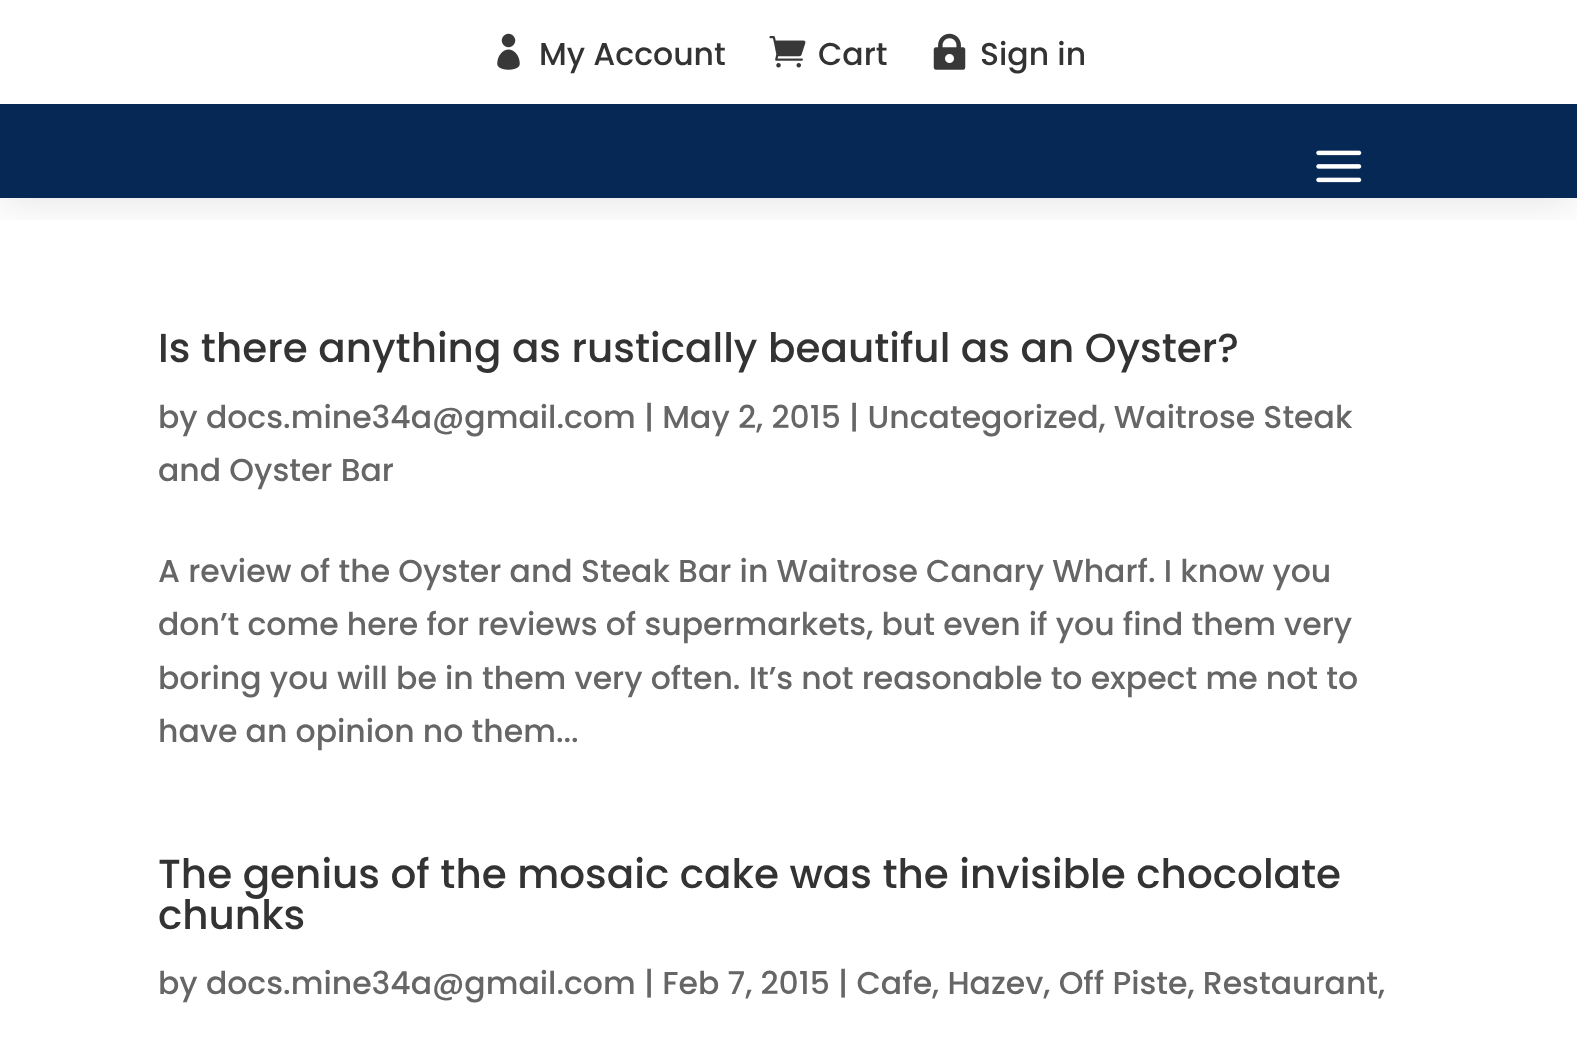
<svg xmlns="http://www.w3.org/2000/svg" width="1577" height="1042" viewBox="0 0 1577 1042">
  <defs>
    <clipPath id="clip1"><rect x="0" y="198" width="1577" height="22"/></clipPath>
    <filter id="blur1" x="-50%" y="-200%" width="200%" height="500%"><feGaussianBlur stdDeviation="20"/></filter>
  </defs>
  <rect width="100%" height="100%" fill="#ffffff"/>
  <g clip-path="url(#clip1)">
    <rect x="0" y="5" width="1577" height="198" fill="#000000" fill-opacity="0.1" filter="url(#blur1)"/>
  </g>
  <image x="497" y="33" width="23" height="37" href="img1.png"/>
  <text x="539" y="65" font-family="Poppins" font-size="31.5" font-weight="500" fill="#333333">My Account</text>
  <image x="769" y="36" width="37" height="32" href="img2.png"/>
  <text x="818" y="65" font-family="Poppins" font-size="31.5" font-weight="500" fill="#333333">Cart</text>
  <image x="933" y="33" width="33" height="37" href="img3.png"/>
  <text x="980" y="65" font-family="Poppins" font-size="31.5" font-weight="500" fill="#333333">Sign in</text>
  <rect x="0" y="104" width="1577" height="94" fill="#052854"/>
  <image x="1316" y="150" width="46" height="33" href="img4.png"/>
  <text x="158" y="362" font-family="Poppins" font-size="40.5" font-weight="500" fill="#333333">Is there anything as rustically beautiful as an Oyster?</text>
  <text x="158" y="428" font-family="Poppins" font-size="31.5" font-weight="500" fill="#666666">by docs.mine34a@gmail.com | May 2, 2015 | Uncategorized, Waitrose Steak</text>
  <text x="158" y="481" font-family="Poppins" font-size="31.5" font-weight="500" fill="#666666">and Oyster Bar</text>
  <text x="158" y="582" font-family="Poppins" font-size="31.5" font-weight="500" fill="#666666">A review of the Oyster and Steak Bar in Waitrose Canary Wharf. I know you</text>
  <text x="158" y="635" font-family="Poppins" font-size="31.5" font-weight="500" fill="#666666">don’t come here for reviews of supermarkets, but even if you find them very</text>
  <text x="158" y="689" font-family="Poppins" font-size="31.5" font-weight="500" fill="#666666">boring you will be in them very often. It’s not reasonable to expect me not to</text>
  <text x="158" y="742" font-family="Poppins" font-size="31.5" font-weight="500" fill="#666666">have an opinion no them...</text>
  <text x="158" y="888" font-family="Poppins" font-size="40.5" font-weight="500" fill="#333333">The genius of the mosaic cake was the invisible chocolate</text>
  <text x="158" y="929" font-family="Poppins" font-size="40.5" font-weight="500" fill="#333333">chunks</text>
  <text x="158" y="994" font-family="Poppins" font-size="31.5" font-weight="500" fill="#666666">by docs.mine34a@gmail.com | Feb 7, 2015 | Cafe, Hazev, Off Piste, Restaurant,</text>
</svg>
